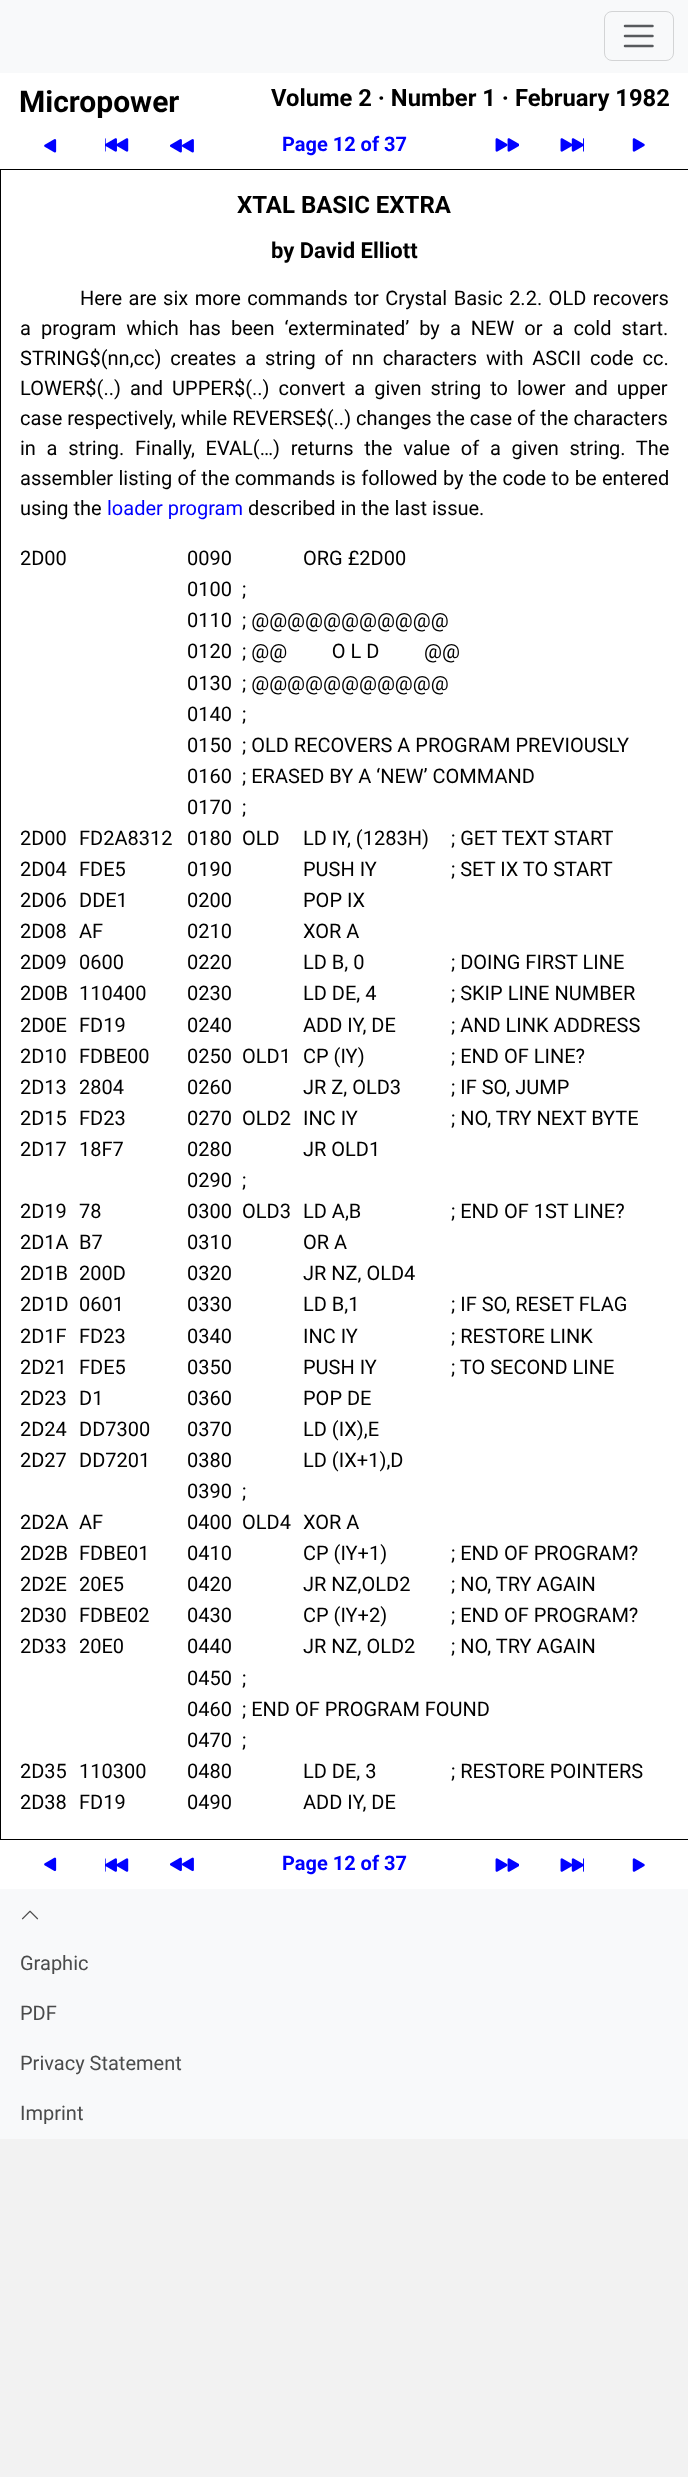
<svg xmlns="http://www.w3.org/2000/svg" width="688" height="2477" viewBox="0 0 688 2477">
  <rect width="100%" height="100%" fill="#f2f2f2"/>
  <rect x="0" y="0" width="688" height="73" fill="#f8f9fa"/>
  <rect x="604.5" y="11.5" width="69" height="49" rx="7.5" fill="none" stroke="#d3d4d5"/>
  <path d="M625 26H652.5M625 36H652.5M625 46H652.5" fill="none" stroke="#575a5d" stroke-width="2.5" stroke-linecap="round"/>
  <rect x="0" y="73" width="688" height="1816" fill="#ffffff"/>
  <text x="19" y="112" font-family="Roboto" font-size="30" font-weight="bold" fill="#000000">Micropower</text>
  <text x="271" y="106" font-family="Roboto" font-size="23.75" font-weight="bold" fill="#000000">Volume 2 · Number 1 · February 1982</text>
  <image x="44" y="139" width="13" height="14" href="img1.png"/>
  <image x="105" y="138" width="24" height="14" href="img2.png"/>
  <image x="170" y="139" width="24" height="14" href="img3.png"/>
  <text x="282" y="151" font-family="Roboto" font-size="20" font-weight="bold" fill="#0000ff">Page 12 of 37</text>
  <image x="495" y="138" width="24" height="14" href="img4.png"/>
  <image x="560" y="138" width="24" height="14" href="img5.png"/>
  <image x="632" y="138" width="13" height="14" href="img6.png"/>
  <rect x="0.5" y="169.5" width="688" height="1670" fill="none" stroke="#000000"/>
  <text x="237" y="213" font-family="Roboto" font-size="24" font-weight="bold" fill="#000000">XTAL BASIC EXTRA</text>
  <text x="271" y="258" font-family="Roboto" font-size="22" font-weight="bold" fill="#000000">by David Elliott</text>
  <text x="80" y="305" word-spacing="1.5" font-family="Roboto" font-size="20" fill="#000000">Here are six more commands tor Crystal Basic 2.2. OLD recovers</text>
  <text x="20" y="335" word-spacing="5.1" font-family="Roboto" font-size="20" fill="#000000">a program which has been ‘exterminated’ by a NEW or a cold start.</text>
  <text x="20" y="365" word-spacing="3.9" font-family="Roboto" font-size="20" fill="#000000">STRING$(nn,cc) creates a string of nn characters with ASCII code cc.</text>
  <text x="20" y="395" word-spacing="4" font-family="Roboto" font-size="20" fill="#000000">LOWER$(..) and UPPER$(..) convert a given string to lower and upper</text>
  <text x="20" y="425" font-family="Roboto" font-size="20" fill="#000000">case respectively, while REVERSE$(..) changes the case of the characters</text>
  <text x="20" y="455" word-spacing="5.75" font-family="Roboto" font-size="20" fill="#000000">in a string. Finally, EVAL(…) returns the value of a given string. The</text>
  <text x="20" y="485" word-spacing="0.4" font-family="Roboto" font-size="20" fill="#000000">assembler listing of the commands is followed by the code to be entered</text>
  <text x="20" y="515" font-family="Roboto" font-size="20" fill="#000000">using the</text>
  <text x="107" y="515" font-family="Roboto" font-size="20" fill="#0000ff">loader program</text>
  <text x="248" y="515" font-family="Roboto" font-size="20" fill="#000000">described in the last issue.</text>
  <text x="20" y="565" font-family="Roboto" font-size="20" fill="#000000">2D00</text>
  <text x="187" y="565" font-family="Roboto" font-size="20" fill="#000000">0090</text>
  <text x="303" y="565" font-family="Roboto" font-size="20" fill="#000000">ORG £2D00</text>
  <text x="187" y="596" font-family="Roboto" font-size="20" fill="#000000">0100</text>
  <text x="242" y="596" font-family="Roboto" font-size="20" fill="#000000">;</text>
  <text x="187" y="627" font-family="Roboto" font-size="20" fill="#000000">0110</text>
  <text x="242" y="627" font-family="Roboto" font-size="20" fill="#000000">; @@@@@@@@@@@</text>
  <text x="187" y="658" font-family="Roboto" font-size="20" fill="#000000">0120</text>
  <text x="242" y="658" font-family="Roboto" font-size="20" fill="#000000" xml:space="preserve">; @@         O L D         @@</text>
  <text x="187" y="690" font-family="Roboto" font-size="20" fill="#000000">0130</text>
  <text x="242" y="690" font-family="Roboto" font-size="20" fill="#000000">; @@@@@@@@@@@</text>
  <text x="187" y="721" font-family="Roboto" font-size="20" fill="#000000">0140</text>
  <text x="242" y="721" font-family="Roboto" font-size="20" fill="#000000">;</text>
  <text x="187" y="752" font-family="Roboto" font-size="20" fill="#000000">0150</text>
  <text x="242" y="752" font-family="Roboto" font-size="20" fill="#000000">; OLD RECOVERS A PROGRAM PREVIOUSLY</text>
  <text x="187" y="783" font-family="Roboto" font-size="20" fill="#000000">0160</text>
  <text x="242" y="783" font-family="Roboto" font-size="20" fill="#000000">; ERASED BY A ‘NEW’ COMMAND</text>
  <text x="187" y="814" font-family="Roboto" font-size="20" fill="#000000">0170</text>
  <text x="242" y="814" font-family="Roboto" font-size="20" fill="#000000">;</text>
  <text x="20" y="845" font-family="Roboto" font-size="20" fill="#000000">2D00</text>
  <text x="79" y="845" font-family="Roboto" font-size="20" fill="#000000">FD2A8312</text>
  <text x="187" y="845" font-family="Roboto" font-size="20" fill="#000000">0180</text>
  <text x="242" y="845" font-family="Roboto" font-size="20" fill="#000000">OLD</text>
  <text x="303" y="845" font-family="Roboto" font-size="20" fill="#000000">LD IY, (1283H)</text>
  <text x="451" y="845" font-family="Roboto" font-size="20" fill="#000000">; GET TEXT START</text>
  <text x="20" y="876" font-family="Roboto" font-size="20" fill="#000000">2D04</text>
  <text x="79" y="876" font-family="Roboto" font-size="20" fill="#000000">FDE5</text>
  <text x="187" y="876" font-family="Roboto" font-size="20" fill="#000000">0190</text>
  <text x="303" y="876" font-family="Roboto" font-size="20" fill="#000000">PUSH IY</text>
  <text x="451" y="876" font-family="Roboto" font-size="20" fill="#000000">; SET IX TO START</text>
  <text x="20" y="907" font-family="Roboto" font-size="20" fill="#000000">2D06</text>
  <text x="79" y="907" font-family="Roboto" font-size="20" fill="#000000">DDE1</text>
  <text x="187" y="907" font-family="Roboto" font-size="20" fill="#000000">0200</text>
  <text x="303" y="907" font-family="Roboto" font-size="20" fill="#000000">POP IX</text>
  <text x="20" y="938" font-family="Roboto" font-size="20" fill="#000000">2D08</text>
  <text x="79" y="938" font-family="Roboto" font-size="20" fill="#000000">AF</text>
  <text x="187" y="938" font-family="Roboto" font-size="20" fill="#000000">0210</text>
  <text x="303" y="938" font-family="Roboto" font-size="20" fill="#000000">XOR A</text>
  <text x="20" y="969" font-family="Roboto" font-size="20" fill="#000000">2D09</text>
  <text x="79" y="969" font-family="Roboto" font-size="20" fill="#000000">0600</text>
  <text x="187" y="969" font-family="Roboto" font-size="20" fill="#000000">0220</text>
  <text x="303" y="969" font-family="Roboto" font-size="20" fill="#000000">LD B, 0</text>
  <text x="451" y="969" font-family="Roboto" font-size="20" fill="#000000">; DOING FIRST LINE</text>
  <text x="20" y="1000" font-family="Roboto" font-size="20" fill="#000000">2D0B</text>
  <text x="79" y="1000" font-family="Roboto" font-size="20" fill="#000000">110400</text>
  <text x="187" y="1000" font-family="Roboto" font-size="20" fill="#000000">0230</text>
  <text x="303" y="1000" font-family="Roboto" font-size="20" fill="#000000">LD DE, 4</text>
  <text x="451" y="1000" font-family="Roboto" font-size="20" fill="#000000">; SKIP LINE NUMBER</text>
  <text x="20" y="1032" font-family="Roboto" font-size="20" fill="#000000">2D0E</text>
  <text x="79" y="1032" font-family="Roboto" font-size="20" fill="#000000">FD19</text>
  <text x="187" y="1032" font-family="Roboto" font-size="20" fill="#000000">0240</text>
  <text x="303" y="1032" font-family="Roboto" font-size="20" fill="#000000">ADD IY, DE</text>
  <text x="451" y="1032" font-family="Roboto" font-size="20" fill="#000000">; AND LINK ADDRESS</text>
  <text x="20" y="1063" font-family="Roboto" font-size="20" fill="#000000">2D10</text>
  <text x="79" y="1063" font-family="Roboto" font-size="20" fill="#000000">FDBE00</text>
  <text x="187" y="1063" font-family="Roboto" font-size="20" fill="#000000">0250</text>
  <text x="242" y="1063" font-family="Roboto" font-size="20" fill="#000000">OLD1</text>
  <text x="303" y="1063" font-family="Roboto" font-size="20" fill="#000000">CP (IY)</text>
  <text x="451" y="1063" font-family="Roboto" font-size="20" fill="#000000">; END OF LINE?</text>
  <text x="20" y="1094" font-family="Roboto" font-size="20" fill="#000000">2D13</text>
  <text x="79" y="1094" font-family="Roboto" font-size="20" fill="#000000">2804</text>
  <text x="187" y="1094" font-family="Roboto" font-size="20" fill="#000000">0260</text>
  <text x="303" y="1094" font-family="Roboto" font-size="20" fill="#000000">JR Z, OLD3</text>
  <text x="451" y="1094" font-family="Roboto" font-size="20" fill="#000000">; IF SO, JUMP</text>
  <text x="20" y="1125" font-family="Roboto" font-size="20" fill="#000000">2D15</text>
  <text x="79" y="1125" font-family="Roboto" font-size="20" fill="#000000">FD23</text>
  <text x="187" y="1125" font-family="Roboto" font-size="20" fill="#000000">0270</text>
  <text x="242" y="1125" font-family="Roboto" font-size="20" fill="#000000">OLD2</text>
  <text x="303" y="1125" font-family="Roboto" font-size="20" fill="#000000">INC IY</text>
  <text x="451" y="1125" font-family="Roboto" font-size="20" fill="#000000">; NO, TRY NEXT BYTE</text>
  <text x="20" y="1156" font-family="Roboto" font-size="20" fill="#000000">2D17</text>
  <text x="79" y="1156" font-family="Roboto" font-size="20" fill="#000000">18F7</text>
  <text x="187" y="1156" font-family="Roboto" font-size="20" fill="#000000">0280</text>
  <text x="303" y="1156" font-family="Roboto" font-size="20" fill="#000000">JR OLD1</text>
  <text x="187" y="1187" font-family="Roboto" font-size="20" fill="#000000">0290</text>
  <text x="242" y="1187" font-family="Roboto" font-size="20" fill="#000000">;</text>
  <text x="20" y="1218" font-family="Roboto" font-size="20" fill="#000000">2D19</text>
  <text x="79" y="1218" font-family="Roboto" font-size="20" fill="#000000">78</text>
  <text x="187" y="1218" font-family="Roboto" font-size="20" fill="#000000">0300</text>
  <text x="242" y="1218" font-family="Roboto" font-size="20" fill="#000000">OLD3</text>
  <text x="303" y="1218" font-family="Roboto" font-size="20" fill="#000000">LD A,B</text>
  <text x="451" y="1218" font-family="Roboto" font-size="20" fill="#000000">; END OF 1ST LINE?</text>
  <text x="20" y="1249" font-family="Roboto" font-size="20" fill="#000000">2D1A</text>
  <text x="79" y="1249" font-family="Roboto" font-size="20" fill="#000000">B7</text>
  <text x="187" y="1249" font-family="Roboto" font-size="20" fill="#000000">0310</text>
  <text x="303" y="1249" font-family="Roboto" font-size="20" fill="#000000">OR A</text>
  <text x="20" y="1280" font-family="Roboto" font-size="20" fill="#000000">2D1B</text>
  <text x="79" y="1280" font-family="Roboto" font-size="20" fill="#000000">200D</text>
  <text x="187" y="1280" font-family="Roboto" font-size="20" fill="#000000">0320</text>
  <text x="303" y="1280" font-family="Roboto" font-size="20" fill="#000000">JR NZ, OLD4</text>
  <text x="20" y="1311" font-family="Roboto" font-size="20" fill="#000000">2D1D</text>
  <text x="79" y="1311" font-family="Roboto" font-size="20" fill="#000000">0601</text>
  <text x="187" y="1311" font-family="Roboto" font-size="20" fill="#000000">0330</text>
  <text x="303" y="1311" font-family="Roboto" font-size="20" fill="#000000">LD B,1</text>
  <text x="451" y="1311" font-family="Roboto" font-size="20" fill="#000000">; IF SO, RESET FLAG</text>
  <text x="20" y="1343" font-family="Roboto" font-size="20" fill="#000000">2D1F</text>
  <text x="79" y="1343" font-family="Roboto" font-size="20" fill="#000000">FD23</text>
  <text x="187" y="1343" font-family="Roboto" font-size="20" fill="#000000">0340</text>
  <text x="303" y="1343" font-family="Roboto" font-size="20" fill="#000000">INC IY</text>
  <text x="451" y="1343" font-family="Roboto" font-size="20" fill="#000000">; RESTORE LINK</text>
  <text x="20" y="1374" font-family="Roboto" font-size="20" fill="#000000">2D21</text>
  <text x="79" y="1374" font-family="Roboto" font-size="20" fill="#000000">FDE5</text>
  <text x="187" y="1374" font-family="Roboto" font-size="20" fill="#000000">0350</text>
  <text x="303" y="1374" font-family="Roboto" font-size="20" fill="#000000">PUSH IY</text>
  <text x="451" y="1374" font-family="Roboto" font-size="20" fill="#000000">; TO SECOND LINE</text>
  <text x="20" y="1405" font-family="Roboto" font-size="20" fill="#000000">2D23</text>
  <text x="79" y="1405" font-family="Roboto" font-size="20" fill="#000000">D1</text>
  <text x="187" y="1405" font-family="Roboto" font-size="20" fill="#000000">0360</text>
  <text x="303" y="1405" font-family="Roboto" font-size="20" fill="#000000">POP DE</text>
  <text x="20" y="1436" font-family="Roboto" font-size="20" fill="#000000">2D24</text>
  <text x="79" y="1436" font-family="Roboto" font-size="20" fill="#000000">DD7300</text>
  <text x="187" y="1436" font-family="Roboto" font-size="20" fill="#000000">0370</text>
  <text x="303" y="1436" font-family="Roboto" font-size="20" fill="#000000">LD (IX),E</text>
  <text x="20" y="1467" font-family="Roboto" font-size="20" fill="#000000">2D27</text>
  <text x="79" y="1467" font-family="Roboto" font-size="20" fill="#000000">DD7201</text>
  <text x="187" y="1467" font-family="Roboto" font-size="20" fill="#000000">0380</text>
  <text x="303" y="1467" font-family="Roboto" font-size="20" fill="#000000">LD (IX+1),D</text>
  <text x="187" y="1498" font-family="Roboto" font-size="20" fill="#000000">0390</text>
  <text x="242" y="1498" font-family="Roboto" font-size="20" fill="#000000">;</text>
  <text x="20" y="1529" font-family="Roboto" font-size="20" fill="#000000">2D2A</text>
  <text x="79" y="1529" font-family="Roboto" font-size="20" fill="#000000">AF</text>
  <text x="187" y="1529" font-family="Roboto" font-size="20" fill="#000000">0400</text>
  <text x="242" y="1529" font-family="Roboto" font-size="20" fill="#000000">OLD4</text>
  <text x="303" y="1529" font-family="Roboto" font-size="20" fill="#000000">XOR A</text>
  <text x="20" y="1560" font-family="Roboto" font-size="20" fill="#000000">2D2B</text>
  <text x="79" y="1560" font-family="Roboto" font-size="20" fill="#000000">FDBE01</text>
  <text x="187" y="1560" font-family="Roboto" font-size="20" fill="#000000">0410</text>
  <text x="303" y="1560" font-family="Roboto" font-size="20" fill="#000000">CP (IY+1)</text>
  <text x="451" y="1560" font-family="Roboto" font-size="20" fill="#000000">; END OF PROGRAM?</text>
  <text x="20" y="1591" font-family="Roboto" font-size="20" fill="#000000">2D2E</text>
  <text x="79" y="1591" font-family="Roboto" font-size="20" fill="#000000">20E5</text>
  <text x="187" y="1591" font-family="Roboto" font-size="20" fill="#000000">0420</text>
  <text x="303" y="1591" font-family="Roboto" font-size="20" fill="#000000">JR NZ,OLD2</text>
  <text x="451" y="1591" font-family="Roboto" font-size="20" fill="#000000">; NO, TRY AGAIN</text>
  <text x="20" y="1622" font-family="Roboto" font-size="20" fill="#000000">2D30</text>
  <text x="79" y="1622" font-family="Roboto" font-size="20" fill="#000000">FDBE02</text>
  <text x="187" y="1622" font-family="Roboto" font-size="20" fill="#000000">0430</text>
  <text x="303" y="1622" font-family="Roboto" font-size="20" fill="#000000">CP (IY+2)</text>
  <text x="451" y="1622" font-family="Roboto" font-size="20" fill="#000000">; END OF PROGRAM?</text>
  <text x="20" y="1653" font-family="Roboto" font-size="20" fill="#000000">2D33</text>
  <text x="79" y="1653" font-family="Roboto" font-size="20" fill="#000000">20E0</text>
  <text x="187" y="1653" font-family="Roboto" font-size="20" fill="#000000">0440</text>
  <text x="303" y="1653" font-family="Roboto" font-size="20" fill="#000000">JR NZ, OLD2</text>
  <text x="451" y="1653" font-family="Roboto" font-size="20" fill="#000000">; NO, TRY AGAIN</text>
  <text x="187" y="1685" font-family="Roboto" font-size="20" fill="#000000">0450</text>
  <text x="242" y="1685" font-family="Roboto" font-size="20" fill="#000000">;</text>
  <text x="187" y="1716" font-family="Roboto" font-size="20" fill="#000000">0460</text>
  <text x="242" y="1716" font-family="Roboto" font-size="20" fill="#000000">; END OF PROGRAM FOUND</text>
  <text x="187" y="1747" font-family="Roboto" font-size="20" fill="#000000">0470</text>
  <text x="242" y="1747" font-family="Roboto" font-size="20" fill="#000000">;</text>
  <text x="20" y="1778" font-family="Roboto" font-size="20" fill="#000000">2D35</text>
  <text x="79" y="1778" font-family="Roboto" font-size="20" fill="#000000">110300</text>
  <text x="187" y="1778" font-family="Roboto" font-size="20" fill="#000000">0480</text>
  <text x="303" y="1778" font-family="Roboto" font-size="20" fill="#000000">LD DE, 3</text>
  <text x="451" y="1778" font-family="Roboto" font-size="20" fill="#000000">; RESTORE POINTERS</text>
  <text x="20" y="1809" font-family="Roboto" font-size="20" fill="#000000">2D38</text>
  <text x="79" y="1809" font-family="Roboto" font-size="20" fill="#000000">FD19</text>
  <text x="187" y="1809" font-family="Roboto" font-size="20" fill="#000000">0490</text>
  <text x="303" y="1809" font-family="Roboto" font-size="20" fill="#000000">ADD IY, DE</text>
  <image x="44" y="1857" width="13" height="15" href="img7.png"/>
  <image x="105" y="1858" width="24" height="14" href="img8.png"/>
  <image x="170" y="1857" width="24" height="15" href="img9.png"/>
  <text x="282" y="1870" font-family="Roboto" font-size="20" font-weight="bold" fill="#0000ff">Page 12 of 37</text>
  <image x="495" y="1858" width="24" height="14" href="img10.png"/>
  <image x="560" y="1858" width="24" height="14" href="img11.png"/>
  <image x="632" y="1858" width="13" height="14" href="img12.png"/>
  <rect x="0" y="1889" width="688" height="250" fill="#f8f9fa"/>
  <image x="21" y="1910" width="18" height="10" href="img13.png"/>
  <text x="20" y="1970" font-family="Roboto" font-size="20" fill="#4a4b4b">Graphic</text>
  <text x="20" y="2020" font-family="Roboto" font-size="20" fill="#4a4b4b">PDF</text>
  <text x="20" y="2070" font-family="Roboto" font-size="20" fill="#4a4b4b">Privacy Statement</text>
  <text x="20" y="2120" font-family="Roboto" font-size="20" fill="#4a4b4b">Imprint</text>
</svg>
